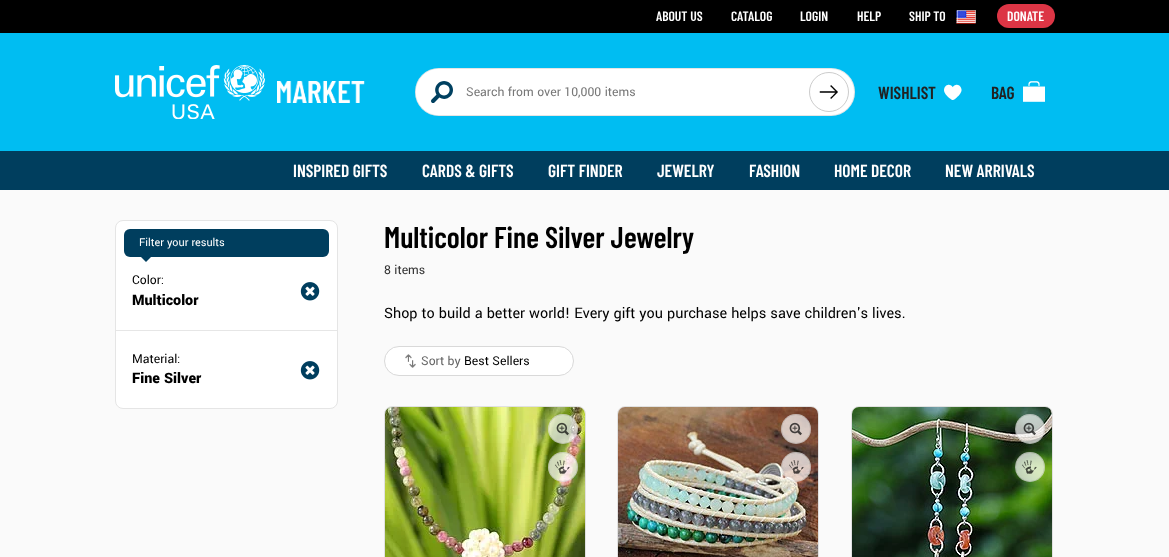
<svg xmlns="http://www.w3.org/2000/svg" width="1169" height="557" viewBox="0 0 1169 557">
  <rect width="100%" height="100%" fill="#fafafa"/>
  <rect x="0" y="33" width="1169" height="118" fill="#00bdf2"/>
  <rect x="0" y="0" width="1169" height="33" fill="#000000"/>
  <text x="656" y="21" font-family="Barlow Condensed" font-size="13.6" font-weight="600" fill="#ffffff">ABOUT US</text>
  <text x="731" y="21" font-family="Barlow Condensed" font-size="13.6" font-weight="600" fill="#ffffff">CATALOG</text>
  <text x="800" y="21" font-family="Barlow Condensed" font-size="13.6" font-weight="600" fill="#ffffff">LOGIN</text>
  <text x="857" y="21" font-family="Barlow Condensed" font-size="13.6" font-weight="600" fill="#ffffff">HELP</text>
  <text x="909" y="21" font-family="Barlow Condensed" font-size="13.6" font-weight="600" fill="#ffffff">SHIP TO</text>
  <image x="956" y="10" width="20" height="14" href="img1.png"/>
  <rect x="957.4" y="10.4" width="18.2" height="12.2" fill="none" stroke="#ffffff" stroke-opacity="0.6" stroke-width="0.8"/>
  <rect x="997" y="4" width="58" height="24" rx="12" fill="#dc3545"/>
  <text x="1007" y="21" font-family="Barlow Condensed" font-size="13.6" font-weight="600" fill="#ffffff">DONATE</text>
  <image x="115" y="65" width="150" height="54" href="img2.png"/>
  <image x="277" y="81" width="88" height="22" href="img3.png"/>
  <rect x="415" y="68" width="440" height="48" rx="24" fill="#ffffff"/>
  <rect x="415.5" y="68.5" width="439" height="47" rx="23.5" fill="none" stroke="#000000" stroke-opacity="0.1"/>
  <path d="M439 69H809V115H439C426.5 115 416 104.5 416 92C416 79.5 426.5 69 439 69Z" fill="#ffffff"/>
  <text x="431" y="103" font-family="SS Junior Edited" font-size="22" fill="#004060">🔎</text>
  <text x="466" y="96" font-family="Yantramanav" font-size="13.6" fill="#777777">Search from over 10,000 items</text>
  <circle cx="829" cy="92" r="19.5" fill="none" stroke="#cccccc"/>
  <image x="819" y="85" width="19" height="14" href="img4.png"/>
  <text x="878" y="99" font-family="Barlow Condensed" font-size="17.5" font-weight="600" fill="#212121">WISHLIST</text>
  <text x="944" y="100" font-family="SS Junior Edited" font-size="17.5" fill="#ffffff">♥</text>
  <text x="991" y="99" font-family="Barlow Condensed" font-size="17.5" font-weight="600" fill="#212121">BAG</text>
  <image x="1023" y="81" width="22" height="21" href="img5.png"/>
  <rect x="0" y="151" width="1169" height="39" fill="#003e5e"/>
  <text x="293" y="177" font-family="Barlow Condensed" font-size="17.5" font-weight="600" fill="#ffffff">INSPIRED GIFTS</text>
  <text x="422" y="177" font-family="Barlow Condensed" font-size="17.5" font-weight="600" fill="#ffffff">CARDS &amp; GIFTS</text>
  <text x="548" y="177" font-family="Barlow Condensed" font-size="17.5" font-weight="600" fill="#ffffff">GIFT FINDER</text>
  <text x="657" y="177" font-family="Barlow Condensed" font-size="17.5" font-weight="600" fill="#ffffff">JEWELRY</text>
  <text x="749" y="177" font-family="Barlow Condensed" font-size="17.5" font-weight="600" fill="#ffffff">FASHION</text>
  <text x="834" y="177" font-family="Barlow Condensed" font-size="17.5" font-weight="600" fill="#ffffff">HOME DECOR</text>
  <text x="945" y="177" font-family="Barlow Condensed" font-size="17.5" font-weight="600" fill="#ffffff">NEW ARRIVALS</text>
  <rect x="115.5" y="220.5" width="222" height="188" rx="7.5" fill="#ffffff" stroke="#e5e5e5"/>
  <rect x="124" y="229" width="205" height="28" rx="6" fill="#003e5e"/>
  <text x="139" y="246" font-family="Yantramanav" font-size="12" fill="#ffffff">Filter your results</text>
  <path d="M139 255H153L146 262Z" fill="#003e5e"/>
  <text x="132" y="284" font-family="Yantramanav" font-size="13.6" fill="#000000">Color:</text>
  <text x="132" y="305" font-family="Yantramanav" font-size="16" font-weight="900" fill="#000000">Multicolor</text>
  <image x="300" y="282" width="20" height="19" href="img6.png"/>
  <rect x="116" y="330" width="221" height="1" fill="#e6e6e6"/>
  <text x="132" y="363" font-family="Yantramanav" font-size="13.6" fill="#000000">Material:</text>
  <text x="132" y="383" font-family="Yantramanav" font-size="16" font-weight="900" fill="#000000">Fine Silver</text>
  <image x="300" y="361" width="20" height="19" href="img6.png"/>
  <text x="384" y="248" font-family="Barlow Condensed" font-size="30" font-weight="600" fill="#000000">Multicolor Fine Silver Jewelry</text>
  <text x="384" y="274" font-family="Yantramanav" font-size="13.6" fill="#323232">8 items</text>
  <text x="384" y="318" font-family="Yantramanav" font-size="16" fill="#000000">Shop to build a better world! Every gift you purchase helps save children's lives.</text>
  <rect x="384.5" y="346.5" width="189" height="29" rx="14.5" fill="#ffffff" stroke="#d9d9d9"/>
  <image x="405" y="354" width="11" height="14" href="img7.png"/>
  <text x="421" y="365" font-family="Yantramanav" font-size="13.6" fill="#666666">Sort by</text>
  <text x="464" y="365" font-family="Yantramanav" font-size="13.6" fill="#000000">Best Sellers</text>
  <rect x="384.5" y="406.5" width="201" height="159" rx="7.5" fill="none" stroke="#e1e1e1"/>
  <image x="385" y="407" width="200" height="150" href="img8.png"/>
  <circle cx="563" cy="429" r="15" fill="#ffffff" fill-opacity="0.7"/>
  <circle cx="563" cy="429" r="14.5" fill="none" stroke="#000000" stroke-opacity="0.1"/>
  <image x="556" y="422" width="13" height="14" href="img9.png"/>
  <circle cx="563" cy="467" r="15" fill="#ffffff" fill-opacity="0.7"/>
  <circle cx="563" cy="467" r="14.5" fill="none" stroke="#000000" stroke-opacity="0.1"/>
  <image x="555" y="460" width="15" height="14" href="img10.png"/>
  <rect x="617.5" y="406.5" width="201" height="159" rx="7.5" fill="none" stroke="#e1e1e1"/>
  <image x="618" y="407" width="200" height="150" href="img11.png"/>
  <circle cx="796" cy="429" r="15" fill="#ffffff" fill-opacity="0.7"/>
  <circle cx="796" cy="429" r="14.5" fill="none" stroke="#000000" stroke-opacity="0.1"/>
  <image x="789" y="422" width="13" height="14" href="img12.png"/>
  <circle cx="796" cy="467" r="15" fill="#ffffff" fill-opacity="0.7"/>
  <circle cx="796" cy="467" r="14.5" fill="none" stroke="#000000" stroke-opacity="0.1"/>
  <image x="789" y="460" width="15" height="14" href="img13.png"/>
  <rect x="851.5" y="406.5" width="201" height="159" rx="7.5" fill="none" stroke="#e1e1e1"/>
  <image x="852" y="407" width="200" height="150" href="img14.png"/>
  <circle cx="1030" cy="429" r="15" fill="#ffffff" fill-opacity="0.7"/>
  <circle cx="1030" cy="429" r="14.5" fill="none" stroke="#000000" stroke-opacity="0.1"/>
  <image x="1023" y="422" width="13" height="14" href="img15.png"/>
  <circle cx="1030" cy="467" r="15" fill="#ffffff" fill-opacity="0.7"/>
  <circle cx="1030" cy="467" r="14.5" fill="none" stroke="#000000" stroke-opacity="0.1"/>
  <image x="1022" y="460" width="15" height="14" href="img16.png"/>
</svg>
